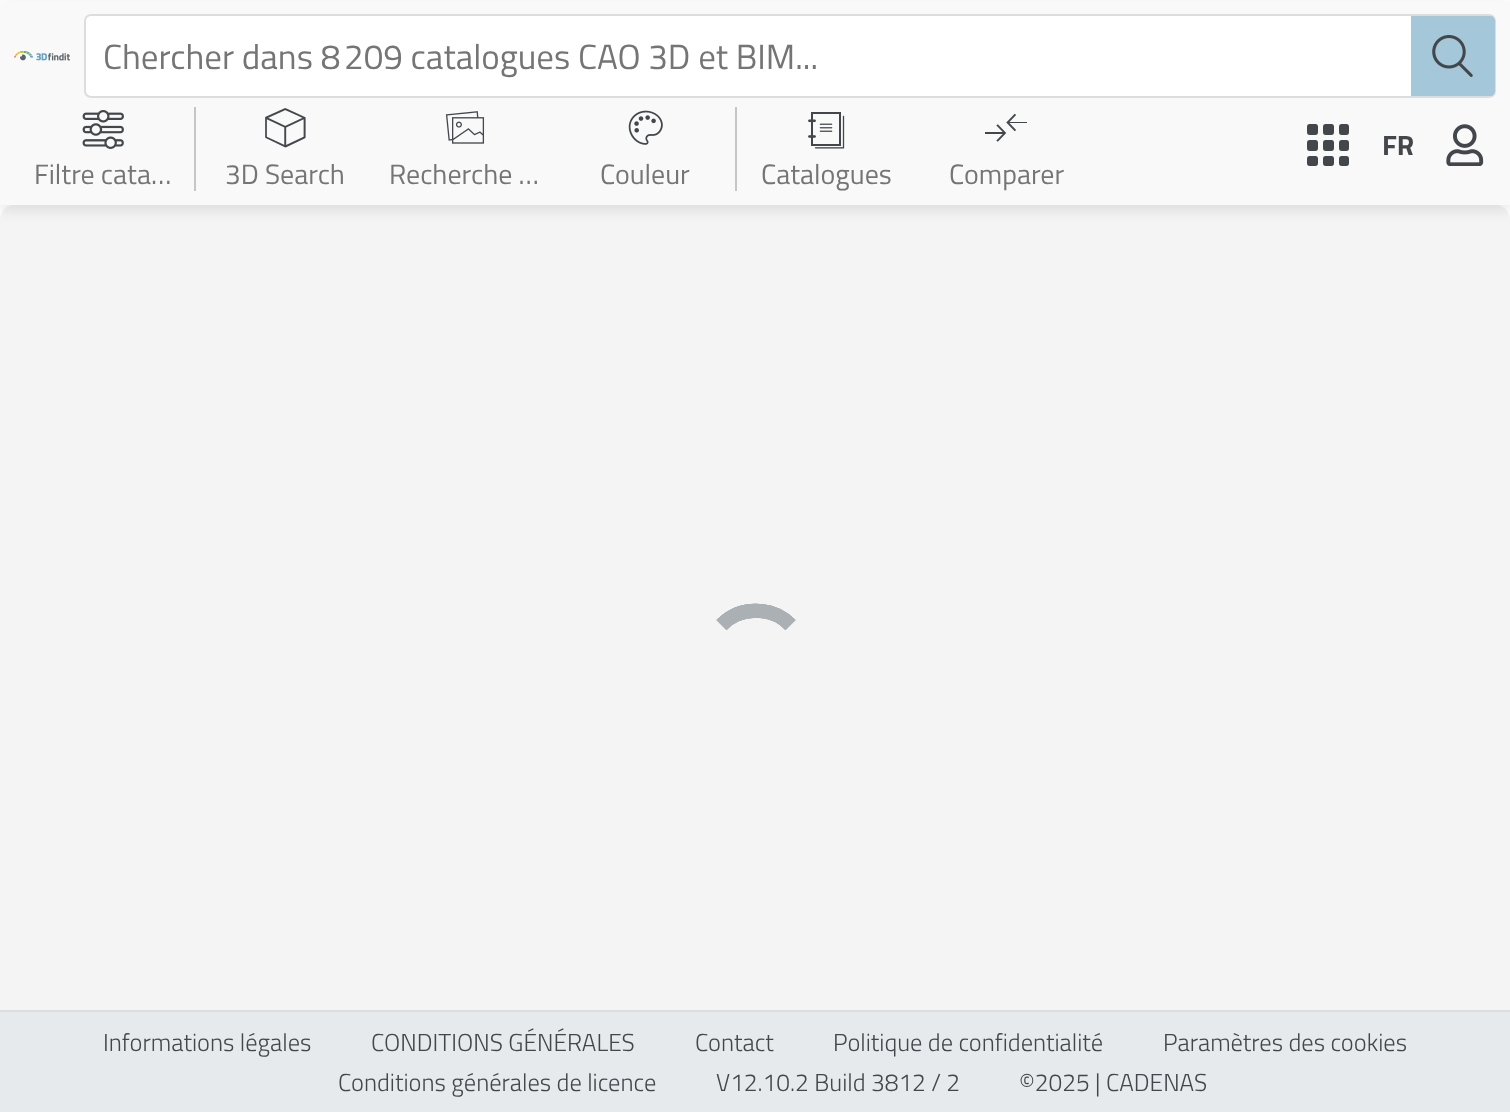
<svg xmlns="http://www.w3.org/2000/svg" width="1510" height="1112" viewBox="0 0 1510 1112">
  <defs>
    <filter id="blur1" x="-50%" y="-200%" width="200%" height="500%"><feGaussianBlur stdDeviation="7"/></filter>
  </defs>
  <rect width="100%" height="100%" fill="#ffffff"/>
  <path d="M14 205H1496C1503.5 205 1510 211.5 1510 219V1010H0V219C0 211.5 6.5 205 14 205Z" fill="#f4f4f4"/>
  <rect x="0" y="5" width="1510" height="205" fill="#000000" fill-opacity="0.1" filter="url(#blur1)"/>
  <rect x="0" y="2" width="1510" height="203" fill="#f9f9f9"/>
  <image x="14" y="51" width="56" height="10" href="img1.png"/>
  <rect x="85" y="15" width="1410" height="82" rx="6" fill="#ffffff" stroke="#dddddd" stroke-width="2"/>
  <text x="103" y="69" font-family="Titillium Web" font-size="35" fill="#757575">Chercher dans 8 209 catalogues CAO 3D et BIM...</text>
  <path d="M1411 16H1490C1493 16 1495 18 1495 21V91C1495 94 1493 96 1490 96H1411Z" fill="#a4c8d9"/>
  <image x="1432" y="35" width="41" height="42" href="img2.png"/>
  <image x="1307" y="124" width="42" height="42" href="img3.png"/>
  <text x="1382" y="155" font-family="Titillium Web" font-size="28" font-weight="bold" fill="#43474b">FR</text>
  <image x="1446" y="124" width="38" height="42" href="img4.png"/>
  <image x="82" y="110" width="42" height="39" href="img5.png"/>
  <text x="34" y="184" font-family="Titillium Web" font-size="28" fill="#757575">Filtre cata…</text>
  <rect x="194" y="107" width="2" height="84" fill="#c6c6c6"/>
  <image x="265" y="108" width="41" height="40" href="img6.png"/>
  <text x="225" y="184" font-family="Titillium Web" font-size="28" fill="#757575">3D Search</text>
  <image x="445" y="111" width="40" height="33" href="img7.png"/>
  <text x="389" y="184" font-family="Titillium Web" font-size="28" fill="#757575">Recherche …</text>
  <image x="628" y="110" width="35" height="35" href="img8.png"/>
  <text x="600" y="184" font-family="Titillium Web" font-size="28" fill="#757575">Couleur</text>
  <rect x="735" y="107" width="2" height="84" fill="#c6c6c6"/>
  <image x="808" y="112" width="37" height="37" href="img9.png"/>
  <text x="761" y="184" font-family="Titillium Web" font-size="28" fill="#757575">Catalogues</text>
  <image x="985" y="113" width="42" height="29" href="img10.png"/>
  <text x="949" y="184" font-family="Titillium Web" font-size="28" fill="#757575">Comparer</text>
  <path d="M721.5 625C740 606 772 606 790.5 625" fill="none" stroke="#aab0b3" stroke-width="14"/>
  <path d="M721.5 625C740 606 772 606 790.5 625" fill="none" stroke="#aab0b3" stroke-width="14"/>
  <path d="M721.5 625C740 606 772 606 790.5 625" fill="none" stroke="#aab0b3" stroke-width="14"/>
  <path d="M721.5 625C740 606 772 606 790.5 625" fill="none" stroke="#aab0b3" stroke-width="14"/>
  <rect x="0" y="1012" width="1510" height="100" fill="#e7eaec"/>
  <rect x="0" y="1010" width="1510" height="2" fill="#dddddd"/>
  <text x="103" y="1051" font-family="Titillium Web" font-size="24.5" font-weight="300" fill="#43474b">Informations légales</text>
  <text x="371" y="1051" font-family="Titillium Web" font-size="24.5" font-weight="300" fill="#43474b">CONDITIONS GÉNÉRALES</text>
  <text x="695" y="1051" font-family="Titillium Web" font-size="24.5" font-weight="300" fill="#43474b">Contact</text>
  <text x="833" y="1051" font-family="Titillium Web" font-size="24.5" font-weight="300" fill="#43474b">Politique de confidentialité</text>
  <text x="1163" y="1051" font-family="Titillium Web" font-size="24.5" font-weight="300" fill="#43474b">Paramètres des cookies</text>
  <text x="338" y="1091" font-family="Titillium Web" font-size="24.5" font-weight="300" fill="#43474b">Conditions générales de licence</text>
  <text x="716" y="1091" font-family="Titillium Web" font-size="24.5" font-weight="300" fill="#43474b">V12.10.2 Build 3812 / 2</text>
  <text x="1019" y="1091" font-family="Titillium Web" font-size="24.5" font-weight="300" fill="#43474b">©2025 | CADENAS</text>
</svg>
